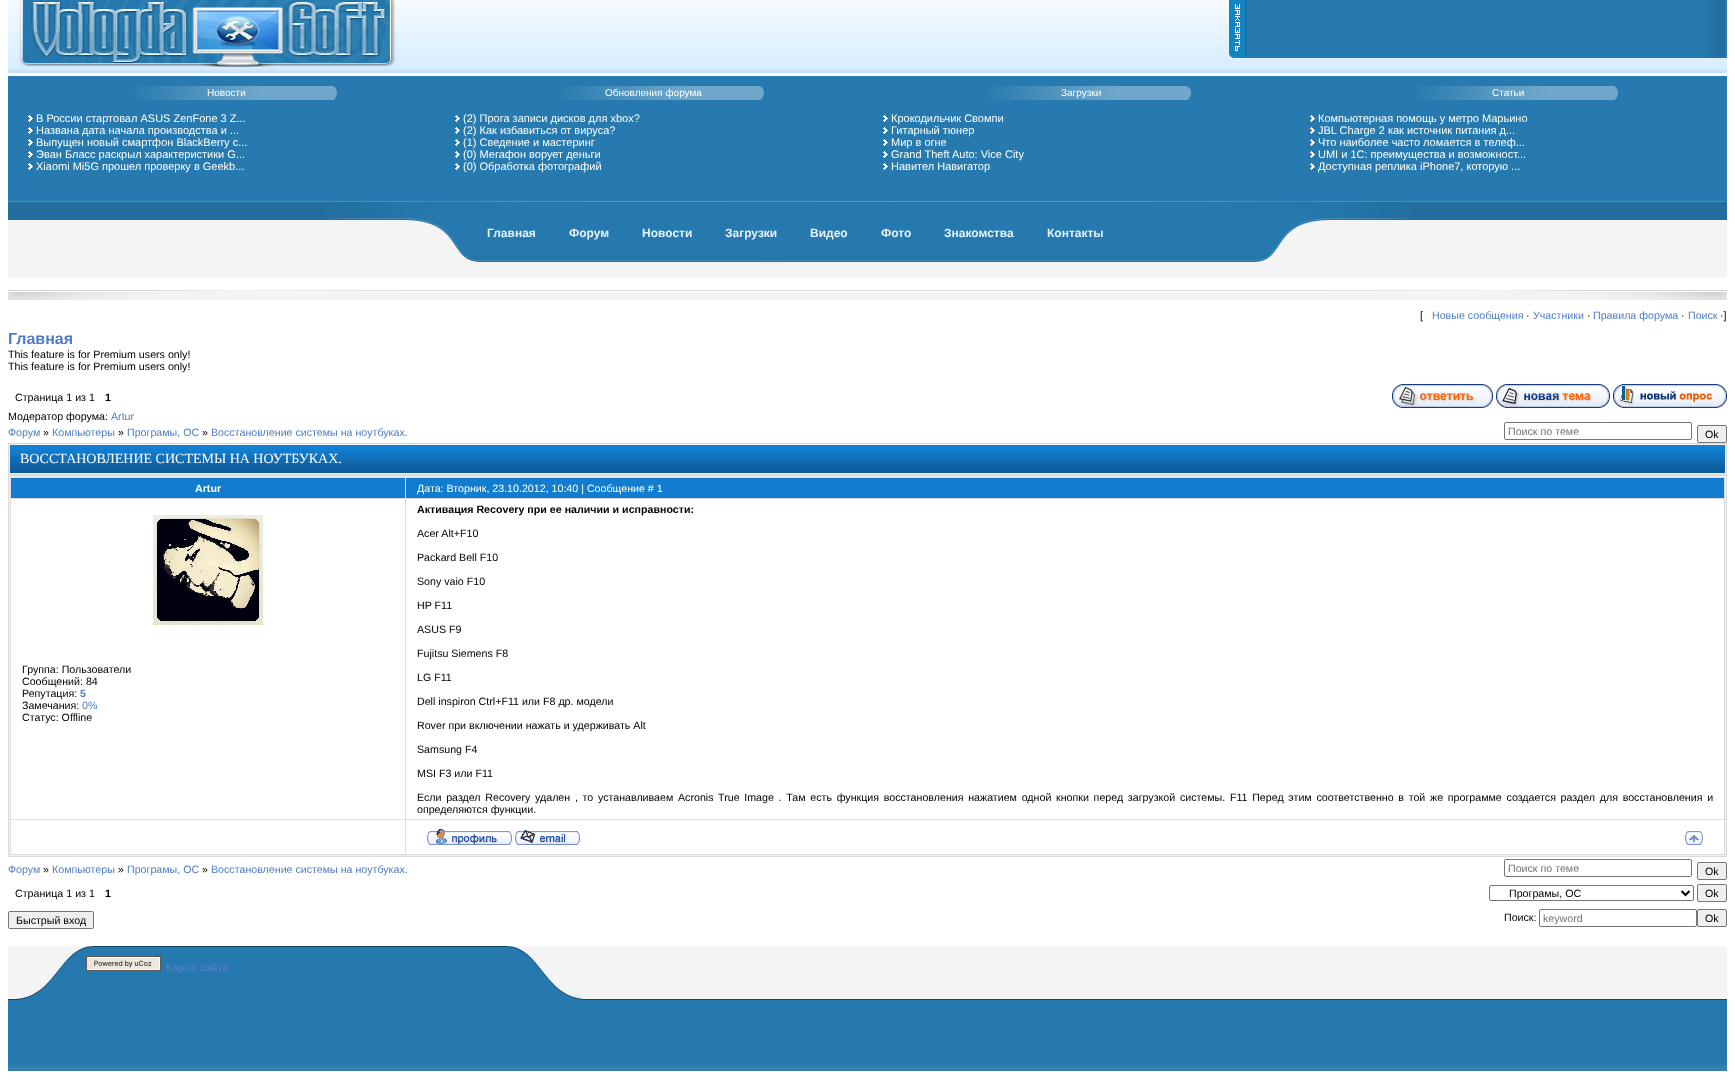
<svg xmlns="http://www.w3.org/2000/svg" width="1735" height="1091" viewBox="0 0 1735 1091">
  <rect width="100%" height="100%" fill="#ffffff"/>
  <image x="8" y="0" width="1719" height="73" href="img1.png"/>
  <image x="19" y="0" width="377" height="67" href="img2.png"/>
  <image x="1229" y="0" width="498" height="58" href="img3.png"/>
  <rect x="8" y="76" width="1719" height="125" fill="#267aaf"/>
  <image x="134" y="86" width="203" height="14" href="img4.png"/>
  <text x="207" y="96" font-family="Liberation Sans" font-size="10" fill="#ffffff">Новости</text>
  <image x="561" y="86" width="203" height="14" href="img4.png"/>
  <text x="605" y="96" font-family="Liberation Sans" font-size="10" fill="#ffffff">Обновления форума</text>
  <image x="988" y="86" width="203" height="14" href="img4.png"/>
  <text x="1061" y="96" font-family="Liberation Sans" font-size="10" fill="#ffffff">Загрузки</text>
  <image x="1415" y="86" width="203" height="14" href="img4.png"/>
  <text x="1492" y="96" font-family="Liberation Sans" font-size="10" fill="#ffffff">Статьи</text>
  <image x="28" y="115" width="5" height="7" href="img5.png"/>
  <text x="36" y="122" font-family="Liberation Sans" font-size="11" fill="#ffffff">В России стартовал ASUS ZenFone 3 Z...</text>
  <image x="28" y="127" width="5" height="7" href="img5.png"/>
  <text x="36" y="134" font-family="Liberation Sans" font-size="11" fill="#ffffff">Названа дата начала производства и ...</text>
  <image x="28" y="139" width="5" height="7" href="img5.png"/>
  <text x="36" y="146" font-family="Liberation Sans" font-size="11" fill="#ffffff">Выпущен новый смартфон BlackBerry с...</text>
  <image x="28" y="151" width="5" height="7" href="img5.png"/>
  <text x="36" y="158" font-family="Liberation Sans" font-size="11" fill="#ffffff">Эван Бласс раскрыл характеристики G...</text>
  <image x="28" y="163" width="5" height="7" href="img5.png"/>
  <text x="36" y="170" font-family="Liberation Sans" font-size="11" fill="#ffffff">Xiaomi Mi5G прошел проверку в Geekb...</text>
  <image x="455" y="115" width="5" height="7" href="img5.png"/>
  <text x="463" y="122" font-family="Liberation Sans" font-size="11" fill="#ffffff">(2) Прога записи дисков для xbox?</text>
  <image x="455" y="127" width="5" height="7" href="img5.png"/>
  <text x="463" y="134" font-family="Liberation Sans" font-size="11" fill="#ffffff">(2) Как избавиться от вируса?</text>
  <image x="455" y="139" width="5" height="7" href="img5.png"/>
  <text x="463" y="146" font-family="Liberation Sans" font-size="11" fill="#ffffff">(1) Сведение и мастеринг</text>
  <image x="455" y="151" width="5" height="7" href="img5.png"/>
  <text x="463" y="158" font-family="Liberation Sans" font-size="11" fill="#ffffff">(0) Мегафон ворует деньги</text>
  <image x="455" y="163" width="5" height="7" href="img5.png"/>
  <text x="463" y="170" font-family="Liberation Sans" font-size="11" fill="#ffffff">(0) Обработка фотографий</text>
  <image x="883" y="115" width="5" height="7" href="img5.png"/>
  <text x="891" y="122" font-family="Liberation Sans" font-size="11" fill="#ffffff">Крокодильчик Свомпи</text>
  <image x="883" y="127" width="5" height="7" href="img5.png"/>
  <text x="891" y="134" font-family="Liberation Sans" font-size="11" fill="#ffffff">Гитарный тюнер</text>
  <image x="883" y="139" width="5" height="7" href="img5.png"/>
  <text x="891" y="146" font-family="Liberation Sans" font-size="11" fill="#ffffff">Мир в огне</text>
  <image x="883" y="151" width="5" height="7" href="img5.png"/>
  <text x="891" y="158" font-family="Liberation Sans" font-size="11" fill="#ffffff">Grand Theft Auto: Vice City</text>
  <image x="883" y="163" width="5" height="7" href="img5.png"/>
  <text x="891" y="170" font-family="Liberation Sans" font-size="11" fill="#ffffff">Навител Навигатор</text>
  <image x="1310" y="115" width="5" height="7" href="img5.png"/>
  <text x="1318" y="122" font-family="Liberation Sans" font-size="11" fill="#ffffff">Компьютерная помощь у метро Марьино</text>
  <image x="1310" y="127" width="5" height="7" href="img5.png"/>
  <text x="1318" y="134" font-family="Liberation Sans" font-size="11" fill="#ffffff">JBL Charge 2 как источник питания д...</text>
  <image x="1310" y="139" width="5" height="7" href="img5.png"/>
  <text x="1318" y="146" font-family="Liberation Sans" font-size="11" fill="#ffffff">Что наиболее часто ломается в телеф...</text>
  <image x="1310" y="151" width="5" height="7" href="img5.png"/>
  <text x="1318" y="158" font-family="Liberation Sans" font-size="11" fill="#ffffff">UMI и 1С: преимущества и возможност...</text>
  <image x="1310" y="163" width="5" height="7" href="img5.png"/>
  <text x="1318" y="170" font-family="Liberation Sans" font-size="11" fill="#ffffff">Доступная реплика iPhone7, которую ...</text>
  <image x="8" y="201" width="1719" height="77" href="img6.png"/>
  <image x="325" y="201" width="1086" height="61" href="img7.png"/>
  <text x="487" y="237" font-family="Liberation Sans" font-size="12" font-weight="bold" fill="#e5f3ff">Главная</text>
  <text x="569" y="237" font-family="Liberation Sans" font-size="12" font-weight="bold" fill="#e5f3ff">Форум</text>
  <text x="642" y="237" font-family="Liberation Sans" font-size="12" font-weight="bold" fill="#e5f3ff">Новости</text>
  <text x="725" y="237" font-family="Liberation Sans" font-size="12" font-weight="bold" fill="#e5f3ff">Загрузки</text>
  <text x="810" y="237" font-family="Liberation Sans" font-size="12" font-weight="bold" fill="#e5f3ff">Видео</text>
  <text x="881" y="237" font-family="Liberation Sans" font-size="12" font-weight="bold" fill="#e5f3ff">Фото</text>
  <text x="944" y="237" font-family="Liberation Sans" font-size="12" font-weight="bold" fill="#e5f3ff">Знакомства</text>
  <text x="1047" y="237" font-family="Liberation Sans" font-size="12" font-weight="bold" fill="#e5f3ff">Контакты</text>
  <image x="410" y="290" width="915" height="10" href="img8.png"/>
  <image x="8" y="290" width="402" height="10" href="img9.png"/>
  <image x="1325" y="290" width="402" height="10" href="img10.png"/>
  <text x="1420" y="319" font-family="Liberation Sans" font-size="10.67" fill="#000000">[</text>
  <text x="1432" y="319" font-family="Liberation Sans" font-size="10.67" fill="#4e7dc6">Новые сообщения</text>
  <text x="1526" y="319" font-family="Liberation Sans" font-size="10.67" fill="#000000">·</text>
  <text x="1533" y="319" font-family="Liberation Sans" font-size="10.67" fill="#4e7dc6">Участники</text>
  <text x="1587" y="319" font-family="Liberation Sans" font-size="10.67" fill="#000000">·</text>
  <text x="1593" y="319" font-family="Liberation Sans" font-size="10.67" fill="#4e7dc6">Правила форума</text>
  <text x="1681" y="319" font-family="Liberation Sans" font-size="10.67" fill="#000000">·</text>
  <text x="1688" y="319" font-family="Liberation Sans" font-size="10.67" fill="#4e7dc6">Поиск</text>
  <text x="1720" y="319" font-family="Liberation Sans" font-size="10.67" fill="#000000">·]</text>
  <text x="8" y="344" font-family="Liberation Sans" font-size="16" font-weight="bold" fill="#4e7dc6">Главная</text>
  <text x="8" y="358" font-family="Liberation Sans" font-size="10.67" fill="#000000">This feature is for Premium users only!</text>
  <text x="8" y="370" font-family="Liberation Sans" font-size="10.67" fill="#000000">This feature is for Premium users only!</text>
  <text x="15" y="401" font-family="Liberation Sans" font-size="10.67" fill="#000000">Страница 1 из 1</text>
  <text x="105" y="401" font-family="Liberation Sans" font-size="10.67" font-weight="bold" fill="#000000">1</text>
  <image x="1392" y="384" width="101" height="24" href="img11.png"/>
  <image x="1496" y="384" width="114" height="24" href="img12.png"/>
  <image x="1613" y="384" width="114" height="24" href="img13.png"/>
  <text x="8" y="420" font-family="Liberation Sans" font-size="10.67" fill="#000000">Модератор форума:</text>
  <text x="111" y="420" font-family="Liberation Sans" font-size="10.67" fill="#4e7dc6">Artur</text>
  <text x="8" y="436" font-family="Liberation Sans" font-size="10.67" fill="#4e7dc6">Форум</text>
  <text x="43" y="436" font-family="Liberation Sans" font-size="10.67" fill="#000000">»</text>
  <text x="52" y="436" font-family="Liberation Sans" font-size="10.67" fill="#4e7dc6">Компьютеры</text>
  <text x="118" y="436" font-family="Liberation Sans" font-size="10.67" fill="#000000">»</text>
  <text x="127" y="436" font-family="Liberation Sans" font-size="10.67" fill="#4e7dc6">Програмы, ОС</text>
  <text x="202" y="436" font-family="Liberation Sans" font-size="10.67" fill="#000000">»</text>
  <text x="211" y="436" font-family="Liberation Sans" font-size="10.67" fill="#4e7dc6">Восстановление системы на ноутбуках.</text>
  <rect x="1504.5" y="422.5" width="187" height="17" rx="1.5" fill="none" stroke="#767676"/>
  <text x="1508" y="435" font-family="Liberation Sans" font-size="10.67" fill="#757575">Поиск по теме</text>
  <rect x="1697.5" y="425.5" width="29" height="17" rx="1.5" fill="#efefef" stroke="#767676"/>
  <text x="1705" y="438" font-family="Liberation Sans" font-size="10.67" fill="#000000">Ok</text>
  <rect x="8" y="443" width="1719" height="414" fill="#dcdbe0"/>
  <image x="10" y="445" width="1715" height="28" href="img14.png"/>
  <rect x="9.5" y="444.5" width="1716" height="29" fill="none" stroke="#efefef"/>
  <text x="20" y="463" font-family="Liberation Serif" font-size="14" fill="#ffffff">ВОССТАНОВЛЕНИЕ СИСТЕМЫ НА НОУТБУКАХ.</text>
  <rect x="9.5" y="476.5" width="1716" height="379" fill="none" stroke="#efefef"/>
  <rect x="11" y="478" width="394" height="20" fill="#127cce"/>
  <text x="195" y="492" font-family="Liberation Sans" font-size="10.67" font-weight="bold" fill="#ffffff">Artur</text>
  <rect x="406" y="478" width="1318" height="20" fill="#127cce"/>
  <text x="417" y="492" font-family="Liberation Sans" font-size="10.67" fill="#ffffff">Дата: Вторник, 23.10.2012, 10:40 | Сообщение # 1</text>
  <rect x="11" y="499" width="394" height="320" fill="#ffffff"/>
  <image x="153" y="515" width="110" height="110" href="img15.png"/>
  <text x="22" y="673" font-family="Liberation Sans" font-size="10.67" fill="#000000">Группа: Пользователи</text>
  <text x="22" y="685" font-family="Liberation Sans" font-size="10.67" fill="#000000">Сообщений: 84</text>
  <text x="22" y="697" font-family="Liberation Sans" font-size="10.67" fill="#000000">Репутация:</text>
  <text x="80" y="697" font-family="Liberation Sans" font-size="10.67" font-weight="bold" fill="#4e7dc6">5</text>
  <text x="22" y="709" font-family="Liberation Sans" font-size="10.67" fill="#000000">Замечания:</text>
  <text x="82" y="709" font-family="Liberation Sans" font-size="10.67" fill="#4e7dc6">0%</text>
  <text x="22" y="721" font-family="Liberation Sans" font-size="10.67" fill="#000000">Статус: Offline</text>
  <rect x="406" y="499" width="1318" height="320" fill="#ffffff"/>
  <text x="417" y="513" font-family="Liberation Sans" font-size="10.67" font-weight="bold" fill="#000000">Активация Recovery при ее наличии и исправности:</text>
  <text x="417" y="537" font-family="Liberation Sans" font-size="10.67" fill="#000000">Acer Alt+F10</text>
  <text x="417" y="561" font-family="Liberation Sans" font-size="10.67" fill="#000000">Packard Bell F10</text>
  <text x="417" y="585" font-family="Liberation Sans" font-size="10.67" fill="#000000">Sony vaio F10</text>
  <text x="417" y="609" font-family="Liberation Sans" font-size="10.67" fill="#000000">HP F11</text>
  <text x="417" y="633" font-family="Liberation Sans" font-size="10.67" fill="#000000">ASUS F9</text>
  <text x="417" y="657" font-family="Liberation Sans" font-size="10.67" fill="#000000">Fujitsu Siemens F8</text>
  <text x="417" y="681" font-family="Liberation Sans" font-size="10.67" fill="#000000">LG F11</text>
  <text x="417" y="705" font-family="Liberation Sans" font-size="10.67" fill="#000000">Dell inspiron Ctrl+F11 или F8 др. модели</text>
  <text x="417" y="729" font-family="Liberation Sans" font-size="10.67" fill="#000000">Rover при включении нажать и удерживать Alt</text>
  <text x="417" y="753" font-family="Liberation Sans" font-size="10.67" fill="#000000">Samsung F4</text>
  <text x="417" y="777" font-family="Liberation Sans" font-size="10.67" fill="#000000">MSI F3 или F11</text>
  <text x="417" y="801" word-spacing="1.75" font-family="Liberation Sans" font-size="10.67" fill="#000000">Если раздел Recovery удален , то устанавливаем Acronis True Image . Там есть функция восстановления нажатием одной кнопки перед загрузкой системы. F11 Перед этим соответственно в той же программе создается раздел для восстановления и</text>
  <text x="417" y="813" font-family="Liberation Sans" font-size="10.67" fill="#000000">определяются функции.</text>
  <rect x="11" y="820" width="394" height="34" fill="#ffffff"/>
  <rect x="406" y="820" width="1318" height="34" fill="#ffffff"/>
  <image x="427" y="829" width="85" height="16" href="img16.png"/>
  <image x="515" y="830" width="65" height="15" href="img17.png"/>
  <image x="1685" y="831" width="18" height="14" href="img18.png"/>
  <text x="8" y="873" font-family="Liberation Sans" font-size="10.67" fill="#4e7dc6">Форум</text>
  <text x="43" y="873" font-family="Liberation Sans" font-size="10.67" fill="#000000">»</text>
  <text x="52" y="873" font-family="Liberation Sans" font-size="10.67" fill="#4e7dc6">Компьютеры</text>
  <text x="118" y="873" font-family="Liberation Sans" font-size="10.67" fill="#000000">»</text>
  <text x="127" y="873" font-family="Liberation Sans" font-size="10.67" fill="#4e7dc6">Програмы, ОС</text>
  <text x="202" y="873" font-family="Liberation Sans" font-size="10.67" fill="#000000">»</text>
  <text x="211" y="873" font-family="Liberation Sans" font-size="10.67" fill="#4e7dc6">Восстановление системы на ноутбуках.</text>
  <rect x="1504.5" y="859.5" width="187" height="17" rx="1.5" fill="none" stroke="#767676"/>
  <text x="1508" y="872" font-family="Liberation Sans" font-size="10.67" fill="#757575">Поиск по теме</text>
  <rect x="1697.5" y="862.5" width="29" height="17" rx="1.5" fill="#efefef" stroke="#767676"/>
  <text x="1705" y="875" font-family="Liberation Sans" font-size="10.67" fill="#000000">Ok</text>
  <text x="15" y="897" font-family="Liberation Sans" font-size="10.67" fill="#000000">Страница 1 из 1</text>
  <text x="105" y="897" font-family="Liberation Sans" font-size="10.67" font-weight="bold" fill="#000000">1</text>
  <rect x="1489.5" y="885.5" width="204" height="15" rx="1.5" fill="none" stroke="#767676"/>
  <path d="M1681.5 891L1685.5 895L1689.5 891" fill="none" stroke="#000000" stroke-width="2"/>
  <text x="1509" y="897" font-family="Liberation Sans" font-size="10.67" fill="#000000">Програмы, ОС</text>
  <rect x="1697.5" y="884.5" width="29" height="17" rx="1.5" fill="#efefef" stroke="#767676"/>
  <text x="1705" y="897" font-family="Liberation Sans" font-size="10.67" fill="#000000">Ok</text>
  <rect x="8.5" y="911.5" width="85" height="17" rx="1.5" fill="#efefef" stroke="#767676"/>
  <text x="16" y="924" font-family="Liberation Sans" font-size="10.67" fill="#000000">Быстрый вход</text>
  <text x="1504" y="921" font-family="Liberation Sans" font-size="10.67" fill="#000000">Поиск:</text>
  <rect x="1539.5" y="909.5" width="157" height="17" rx="1.5" fill="none" stroke="#767676"/>
  <text x="1543" y="922" font-family="Liberation Sans" font-size="10.67" fill="#757575">keyword</text>
  <rect x="1697.5" y="909.5" width="29" height="17" rx="1.5" fill="#efefef" stroke="#767676"/>
  <text x="1705" y="922" font-family="Liberation Sans" font-size="10.67" fill="#000000">Ok</text>
  <image x="8" y="946" width="1719" height="125" href="img19.png"/>
  <image x="15" y="946" width="568" height="70" href="img20.png"/>
  <image x="86" y="956" width="75" height="15" href="img21.png"/>
  <text x="166" y="971" font-family="Liberation Sans" font-size="10.67" font-weight="bold" fill="#4e7dc6">Карта сайта</text>
</svg>
